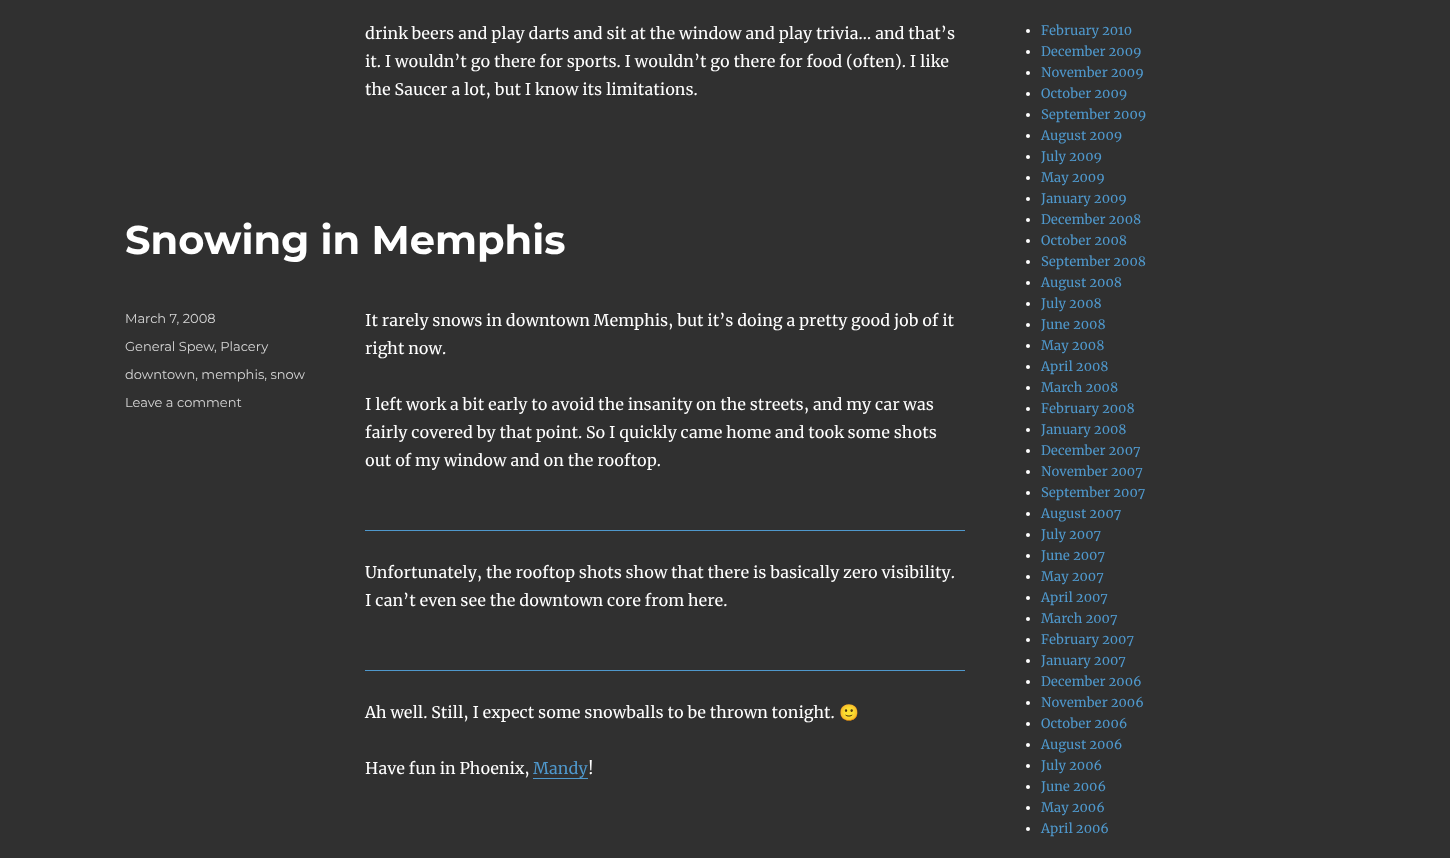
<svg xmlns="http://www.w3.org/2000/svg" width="1450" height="858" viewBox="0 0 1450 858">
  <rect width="100%" height="100%" fill="#303030"/>
  <text x="365" y="39" font-family="Merriweather" font-size="16" fill="#ffffff">drink beers and play darts and sit at the window and play trivia… and that’s</text>
  <text x="365" y="67" font-family="Merriweather" font-size="16" fill="#ffffff">it. I wouldn’t go there for sports. I wouldn’t go there for food (often). I like</text>
  <text x="365" y="95" font-family="Merriweather" font-size="16" fill="#ffffff">the Saucer a lot, but I know its limitations.</text>
  <text x="125" y="254" font-family="'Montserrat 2'" font-size="40" font-weight="100" fill="#ffffff">Snowing in Memphis</text>
  <text x="125" y="323" font-family="Montserrat" font-size="13" font-weight="100" fill="#d6d6d6">March 7, 2008</text>
  <text x="125" y="351" font-family="Montserrat" font-size="13" font-weight="100" fill="#d6d6d6">General Spew</text>
  <text x="214" y="351" font-family="Montserrat" font-size="13" font-weight="100" fill="#d6d6d6">, Placery</text>
  <text x="125" y="379" font-family="Montserrat" font-size="13" font-weight="100" fill="#d6d6d6">downtown, memphis, snow</text>
  <text x="125" y="407" font-family="Montserrat" font-size="13" font-weight="100" fill="#d6d6d6">Leave a comment</text>
  <text x="365" y="326" font-family="Merriweather" font-size="16" fill="#ffffff">It rarely snows in downtown Memphis, but it’s doing a pretty good job of it</text>
  <text x="365" y="354" font-family="Merriweather" font-size="16" fill="#ffffff">right now.</text>
  <text x="365" y="410" font-family="Merriweather" font-size="16" fill="#ffffff">I left work a bit early to avoid the insanity on the streets, and my car was</text>
  <text x="365" y="438" font-family="Merriweather" font-size="16" fill="#ffffff">fairly covered by that point. So I quickly came home and took some shots</text>
  <text x="365" y="466" font-family="Merriweather" font-size="16" fill="#ffffff">out of my window and on the rooftop.</text>
  <rect x="365" y="530" width="600" height="1" fill="#4f98cc"/>
  <text x="365" y="578" font-family="Merriweather" font-size="16" fill="#ffffff">Unfortunately, the rooftop shots show that there is basically zero visibility.</text>
  <text x="365" y="606" font-family="Merriweather" font-size="16" fill="#ffffff">I can’t even see the downtown core from here.</text>
  <rect x="365" y="670" width="600" height="1" fill="#4f98cc"/>
  <text x="365" y="718" font-family="Merriweather" font-size="16" fill="#ffffff">Ah well. Still, I expect some snowballs to be thrown tonight.</text>
  <text x="839" y="718" font-family="Noto Color Emoji" font-size="16" fill="#ffffff">🙂</text>
  <text x="365" y="774" font-family="Merriweather" font-size="16" fill="#ffffff">Have fun in Phoenix,</text>
  <text x="533" y="774" font-family="Merriweather" font-size="16" fill="#4f98cc">Mandy</text>
  <rect x="533" y="778" width="55" height="1" fill="#4f98cc"/>
  <text x="588" y="774" font-family="Merriweather" font-size="16" fill="#ffffff">!</text>
  <circle cx="1028" cy="31" r="2" fill="#ffffff"/>
  <text x="1041" y="35" font-family="Merriweather" font-size="13" fill="#4f98cc">February 2010</text>
  <circle cx="1028" cy="52" r="2" fill="#ffffff"/>
  <text x="1041" y="56" font-family="Merriweather" font-size="13" fill="#4f98cc">December 2009</text>
  <circle cx="1028" cy="73" r="2" fill="#ffffff"/>
  <text x="1041" y="77" font-family="Merriweather" font-size="13" fill="#4f98cc">November 2009</text>
  <circle cx="1028" cy="94" r="2" fill="#ffffff"/>
  <text x="1041" y="98" font-family="Merriweather" font-size="13" fill="#4f98cc">October 2009</text>
  <circle cx="1028" cy="115" r="2" fill="#ffffff"/>
  <text x="1041" y="119" font-family="Merriweather" font-size="13" fill="#4f98cc">September 2009</text>
  <circle cx="1028" cy="136" r="2" fill="#ffffff"/>
  <text x="1041" y="140" font-family="Merriweather" font-size="13" fill="#4f98cc">August 2009</text>
  <circle cx="1028" cy="157" r="2" fill="#ffffff"/>
  <text x="1041" y="161" font-family="Merriweather" font-size="13" fill="#4f98cc">July 2009</text>
  <circle cx="1028" cy="178" r="2" fill="#ffffff"/>
  <text x="1041" y="182" font-family="Merriweather" font-size="13" fill="#4f98cc">May 2009</text>
  <circle cx="1028" cy="199" r="2" fill="#ffffff"/>
  <text x="1041" y="203" font-family="Merriweather" font-size="13" fill="#4f98cc">January 2009</text>
  <circle cx="1028" cy="220" r="2" fill="#ffffff"/>
  <text x="1041" y="224" font-family="Merriweather" font-size="13" fill="#4f98cc">December 2008</text>
  <circle cx="1028" cy="241" r="2" fill="#ffffff"/>
  <text x="1041" y="245" font-family="Merriweather" font-size="13" fill="#4f98cc">October 2008</text>
  <circle cx="1028" cy="262" r="2" fill="#ffffff"/>
  <text x="1041" y="266" font-family="Merriweather" font-size="13" fill="#4f98cc">September 2008</text>
  <circle cx="1028" cy="283" r="2" fill="#ffffff"/>
  <text x="1041" y="287" font-family="Merriweather" font-size="13" fill="#4f98cc">August 2008</text>
  <circle cx="1028" cy="304" r="2" fill="#ffffff"/>
  <text x="1041" y="308" font-family="Merriweather" font-size="13" fill="#4f98cc">July 2008</text>
  <circle cx="1028" cy="325" r="2" fill="#ffffff"/>
  <text x="1041" y="329" font-family="Merriweather" font-size="13" fill="#4f98cc">June 2008</text>
  <circle cx="1028" cy="346" r="2" fill="#ffffff"/>
  <text x="1041" y="350" font-family="Merriweather" font-size="13" fill="#4f98cc">May 2008</text>
  <circle cx="1028" cy="367" r="2" fill="#ffffff"/>
  <text x="1041" y="371" font-family="Merriweather" font-size="13" fill="#4f98cc">April 2008</text>
  <circle cx="1028" cy="388" r="2" fill="#ffffff"/>
  <text x="1041" y="392" font-family="Merriweather" font-size="13" fill="#4f98cc">March 2008</text>
  <circle cx="1028" cy="409" r="2" fill="#ffffff"/>
  <text x="1041" y="413" font-family="Merriweather" font-size="13" fill="#4f98cc">February 2008</text>
  <circle cx="1028" cy="430" r="2" fill="#ffffff"/>
  <text x="1041" y="434" font-family="Merriweather" font-size="13" fill="#4f98cc">January 2008</text>
  <circle cx="1028" cy="451" r="2" fill="#ffffff"/>
  <text x="1041" y="455" font-family="Merriweather" font-size="13" fill="#4f98cc">December 2007</text>
  <circle cx="1028" cy="472" r="2" fill="#ffffff"/>
  <text x="1041" y="476" font-family="Merriweather" font-size="13" fill="#4f98cc">November 2007</text>
  <circle cx="1028" cy="493" r="2" fill="#ffffff"/>
  <text x="1041" y="497" font-family="Merriweather" font-size="13" fill="#4f98cc">September 2007</text>
  <circle cx="1028" cy="514" r="2" fill="#ffffff"/>
  <text x="1041" y="518" font-family="Merriweather" font-size="13" fill="#4f98cc">August 2007</text>
  <circle cx="1028" cy="535" r="2" fill="#ffffff"/>
  <text x="1041" y="539" font-family="Merriweather" font-size="13" fill="#4f98cc">July 2007</text>
  <circle cx="1028" cy="556" r="2" fill="#ffffff"/>
  <text x="1041" y="560" font-family="Merriweather" font-size="13" fill="#4f98cc">June 2007</text>
  <circle cx="1028" cy="577" r="2" fill="#ffffff"/>
  <text x="1041" y="581" font-family="Merriweather" font-size="13" fill="#4f98cc">May 2007</text>
  <circle cx="1028" cy="598" r="2" fill="#ffffff"/>
  <text x="1041" y="602" font-family="Merriweather" font-size="13" fill="#4f98cc">April 2007</text>
  <circle cx="1028" cy="619" r="2" fill="#ffffff"/>
  <text x="1041" y="623" font-family="Merriweather" font-size="13" fill="#4f98cc">March 2007</text>
  <circle cx="1028" cy="640" r="2" fill="#ffffff"/>
  <text x="1041" y="644" font-family="Merriweather" font-size="13" fill="#4f98cc">February 2007</text>
  <circle cx="1028" cy="661" r="2" fill="#ffffff"/>
  <text x="1041" y="665" font-family="Merriweather" font-size="13" fill="#4f98cc">January 2007</text>
  <circle cx="1028" cy="682" r="2" fill="#ffffff"/>
  <text x="1041" y="686" font-family="Merriweather" font-size="13" fill="#4f98cc">December 2006</text>
  <circle cx="1028" cy="703" r="2" fill="#ffffff"/>
  <text x="1041" y="707" font-family="Merriweather" font-size="13" fill="#4f98cc">November 2006</text>
  <circle cx="1028" cy="724" r="2" fill="#ffffff"/>
  <text x="1041" y="728" font-family="Merriweather" font-size="13" fill="#4f98cc">October 2006</text>
  <circle cx="1028" cy="745" r="2" fill="#ffffff"/>
  <text x="1041" y="749" font-family="Merriweather" font-size="13" fill="#4f98cc">August 2006</text>
  <circle cx="1028" cy="766" r="2" fill="#ffffff"/>
  <text x="1041" y="770" font-family="Merriweather" font-size="13" fill="#4f98cc">July 2006</text>
  <circle cx="1028" cy="787" r="2" fill="#ffffff"/>
  <text x="1041" y="791" font-family="Merriweather" font-size="13" fill="#4f98cc">June 2006</text>
  <circle cx="1028" cy="808" r="2" fill="#ffffff"/>
  <text x="1041" y="812" font-family="Merriweather" font-size="13" fill="#4f98cc">May 2006</text>
  <circle cx="1028" cy="829" r="2" fill="#ffffff"/>
  <text x="1041" y="833" font-family="Merriweather" font-size="13" fill="#4f98cc">April 2006</text>
</svg>
